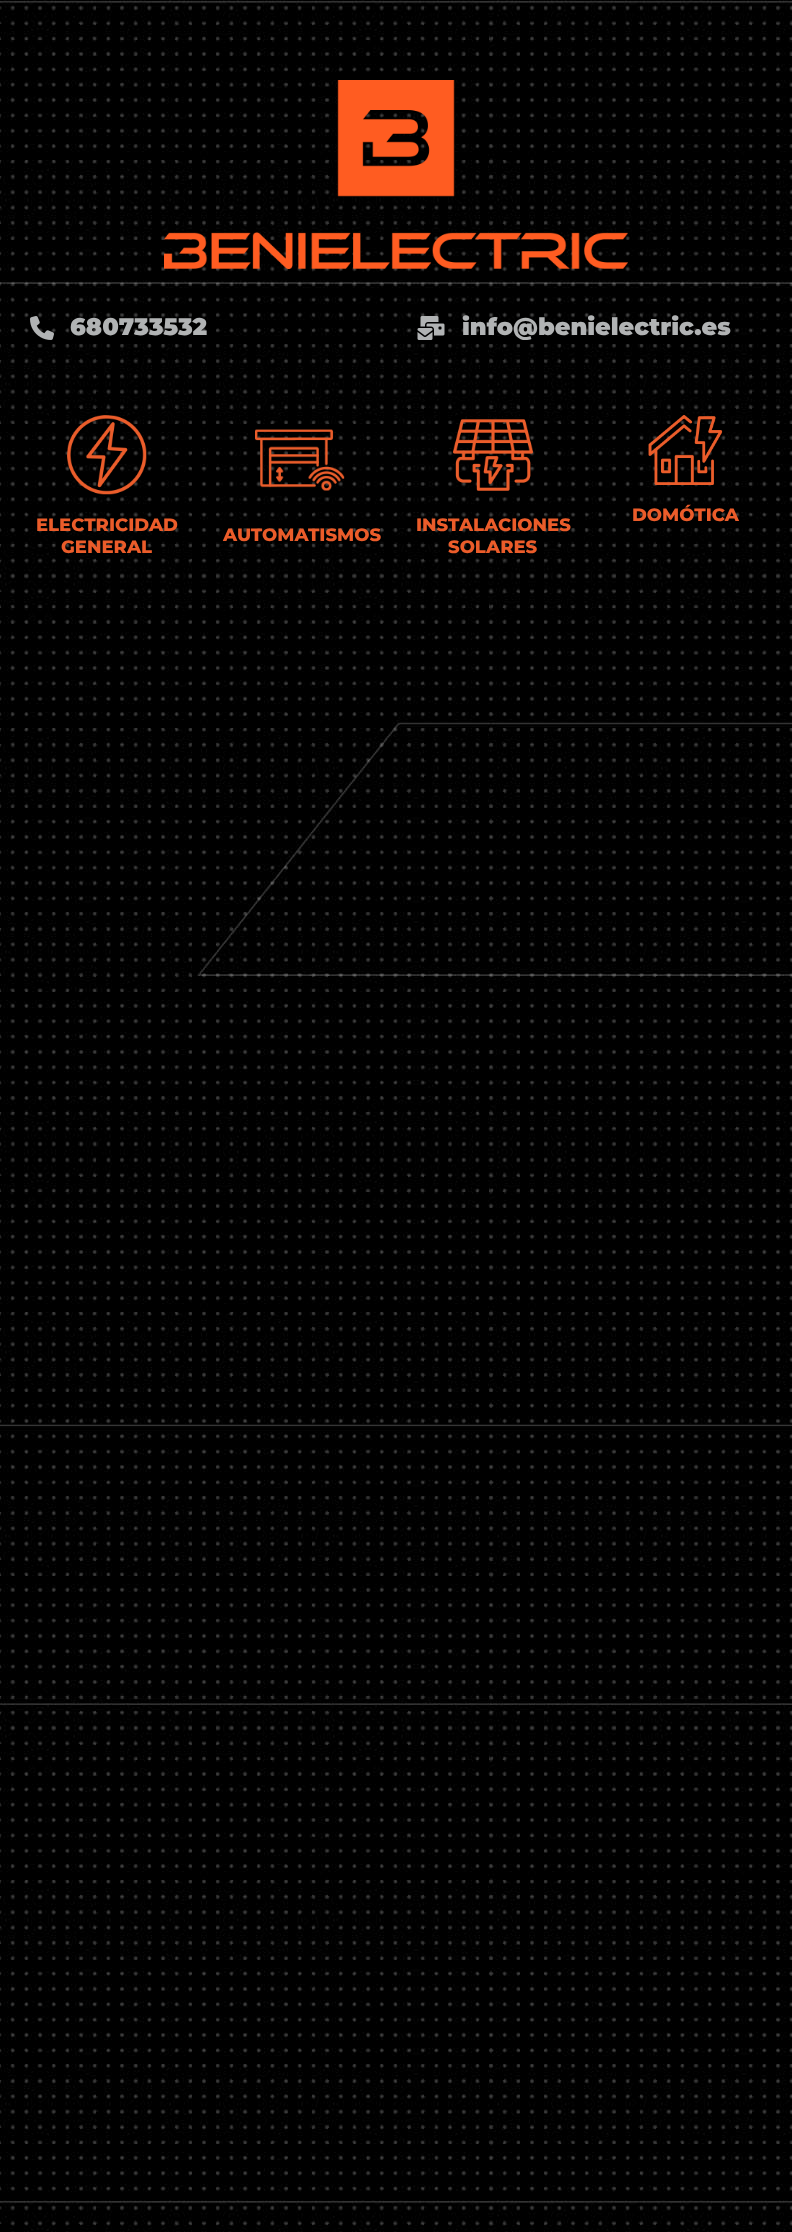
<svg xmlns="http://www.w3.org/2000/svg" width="792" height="2232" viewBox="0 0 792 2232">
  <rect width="100%" height="100%" fill="#ffffff"/>
  <image x="0" y="0" width="792" height="2232" href="img1.png"/>
  <image x="164" y="80" width="464" height="189" href="img2.png"/>
  <image x="30" y="316" width="24" height="24" href="img3.png"/>
  <text x="70" y="335" font-family="Montserrat" font-size="24" font-weight="900" fill="#b1b3b4">680733532</text>
  <image x="417" y="316" width="28" height="24" href="img4.png"/>
  <text x="462" y="335" font-family="Montserrat" font-size="24" font-weight="900" fill="#b1b3b4">info@benielectric.es</text>
  <image x="648" y="415" width="75" height="70" href="img5.png"/>
  <text x="632" y="521" font-family="Montserrat" font-size="18" font-weight="800" fill="#eb5c2a">DOMÓTICA</text>
  <image x="67" y="415" width="80" height="80" href="img6.png"/>
  <text x="36" y="531" font-family="Montserrat" font-size="18" font-weight="800" fill="#eb5c2a">ELECTRICIDAD</text>
  <text x="61" y="553" font-family="Montserrat" font-size="18" font-weight="800" fill="#eb5c2a">GENERAL</text>
  <image x="255" y="429" width="90" height="62" href="img7.png"/>
  <text x="223" y="541" font-family="Montserrat" font-size="18" font-weight="800" fill="#eb5c2a">AUTOMATISMOS</text>
  <image x="453" y="419" width="80" height="72" href="img8.png"/>
  <text x="416" y="531" font-family="Montserrat" font-size="18" font-weight="800" fill="#eb5c2a">INSTALACIONES</text>
  <text x="448" y="553" font-family="Montserrat" font-size="18" font-weight="800" fill="#eb5c2a">SOLARES</text>
</svg>
